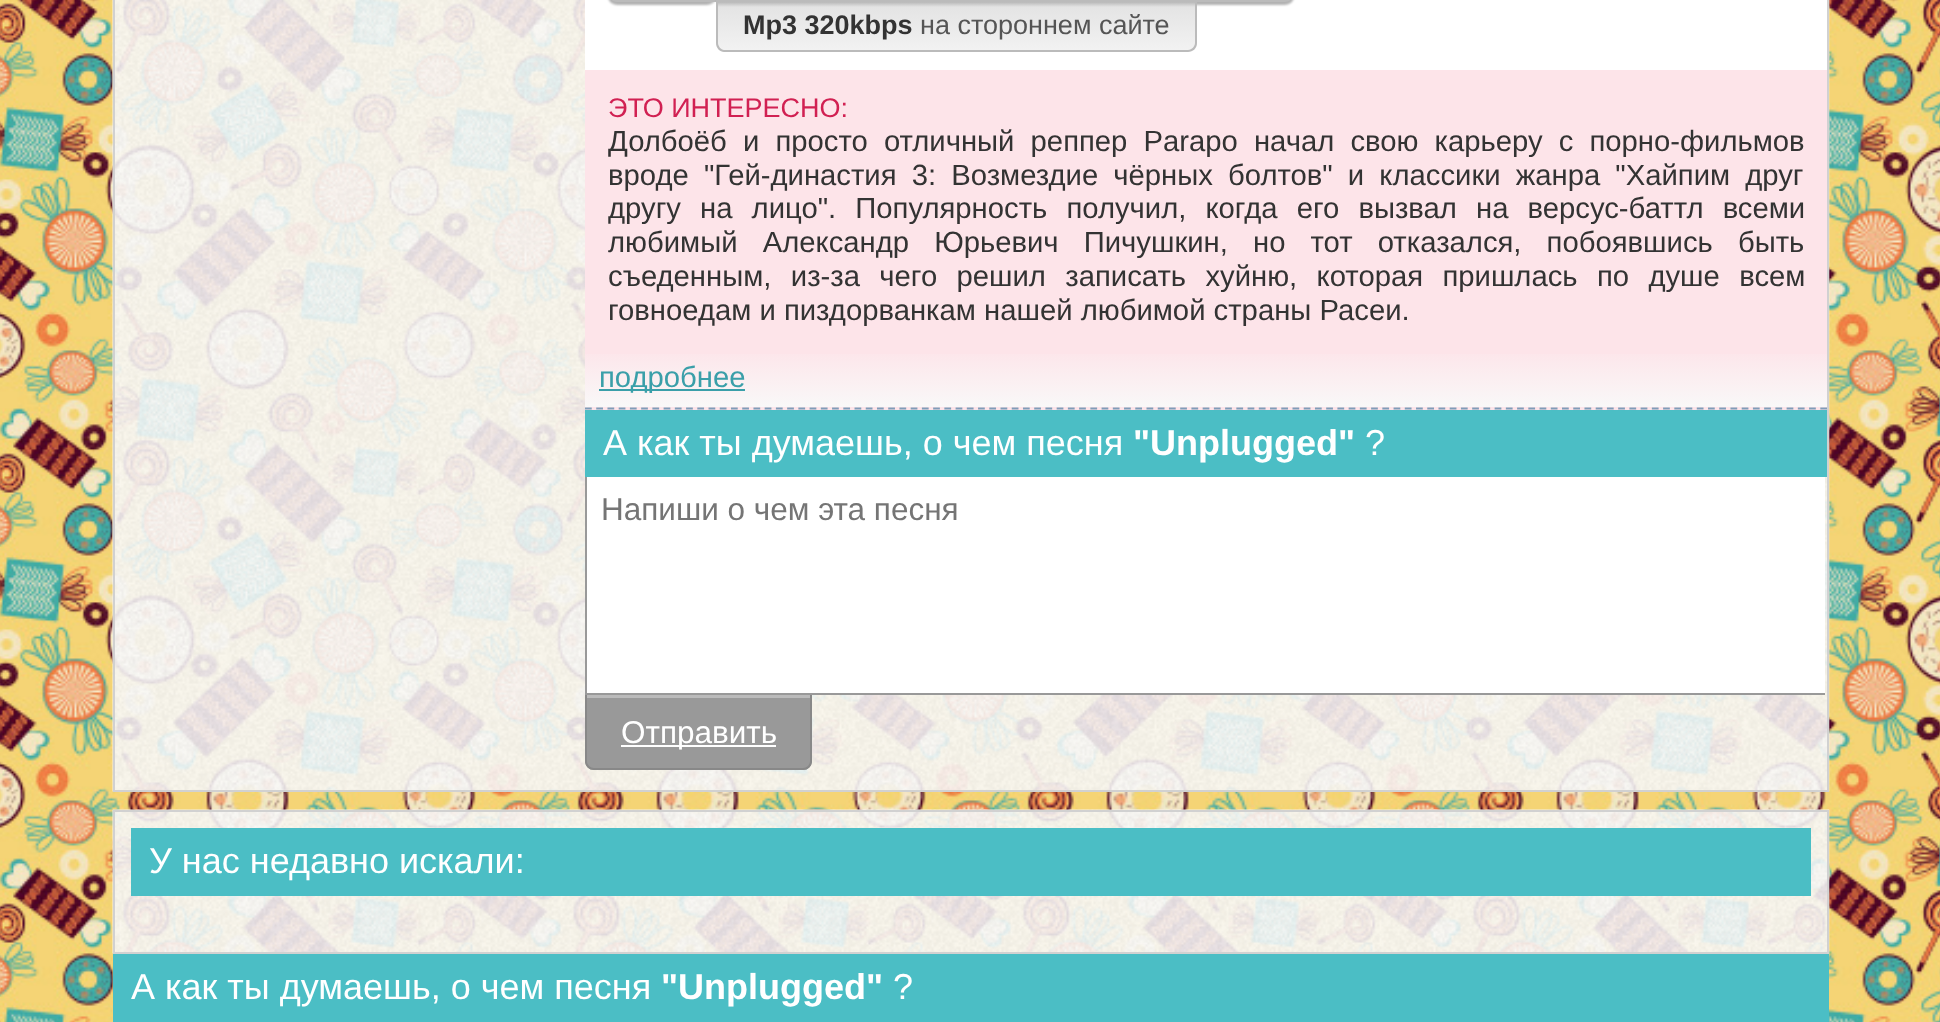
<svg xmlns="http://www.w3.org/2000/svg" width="1940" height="1022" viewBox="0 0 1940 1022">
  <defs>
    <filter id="blur1" x="-50%" y="-200%" width="200%" height="500%"><feGaussianBlur stdDeviation="1"/></filter>
    <clipPath id="clip1"><path d="M716 2H1197V43C1197 48 1193 52 1188 52H725C720 52 716 48 716 43Z"/></clipPath>
    <linearGradient id="g1" gradientUnits="userSpaceOnUse" x1="718" y1="2.2" x2="718" y2="50"><stop offset="0" stop-color="#bababa"/><stop offset="0.1" stop-color="#e4e4e4"/><stop offset="1" stop-color="#f2f2f2"/></linearGradient>
    <linearGradient id="g2" gradientUnits="userSpaceOnUse" x1="1220" y1="346" x2="1220" y2="407"><stop offset="0" stop-color="#fde4e9"/><stop offset="1" stop-color="#f9f8f8"/></linearGradient>
  </defs>
  <rect width="100%" height="100%" fill="#ffffff"/>
  <image x="0" y="0" width="1940" height="1022" href="img1.png"/>
  <image x="112" y="0" width="1718" height="792" href="img2.png"/>
  <rect x="114" y="-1" width="1714" height="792" fill="none" stroke="#d1d1d1" stroke-width="2"/>
  <rect x="585" y="0" width="1242" height="70" fill="#ffffff"/>
  <rect x="608" y="-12" width="108" height="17" rx="9" fill="#000000" fill-opacity="0.3" filter="url(#blur1)"/>
  <path d="M617-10H715V1H617C612.5 1 609-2.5 609-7V-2C609-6.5 612.5-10 617-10Z" fill="none" stroke="#bbbbbb" stroke-width="2"/>
  <rect x="716" y="-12" width="578" height="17" rx="9" fill="#000000" fill-opacity="0.3" filter="url(#blur1)"/>
  <path d="M716-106H1285C1290-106 1294-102 1294-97V-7C1294-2 1290 2 1285 2H716ZM716-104H1285C1288-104 1292-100 1292-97V-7C1292-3 1288 0 1285 0H716Z" fill="#bbbbbb" fill-rule="evenodd"/>
  <g clip-path="url(#clip1)">
    <rect x="716" y="2" width="481" height="48" fill="url(#g1)"/>
  </g>
  <path d="M716 2H1197V43C1197 48 1193 52 1188 52H724C720 52 716 48 716 43ZM718 2H1195V43C1195 46 1192 50 1188 50H724C721 50 718 46 718 43Z" fill="#bbbbbb" fill-rule="evenodd"/>
  <text x="743" y="34" font-family="Liberation Sans" font-size="27" font-weight="bold" fill="#333333">Mp3 320kbps</text>
  <text x="920" y="34" font-family="Liberation Sans" font-size="27" fill="#555555">на стороннем сайте</text>
  <rect x="585" y="70" width="1242" height="340" fill="#fde4e9"/>
  <path d="M585 408.5H1827" fill="none" stroke="#7f9db9" stroke-width="2.2" stroke-dasharray="6.75 4.48"/>
  <text x="608" y="117" font-family="Liberation Sans" font-size="27" fill="#d12052">ЭТО ИНТЕРЕСНО:</text>
  <text x="608" y="151" word-spacing="8" font-family="Liberation Sans" font-size="29.25" fill="#333333">Долбоёб и просто отличный реппер Parapo начал свою карьеру с порно-фильмов</text>
  <text x="608" y="185" word-spacing="7" font-family="Liberation Sans" font-size="29.25" fill="#333333">вроде "Гей-династия 3: Возмездие чёрных болтов" и классики жанра "Хайпим друг</text>
  <text x="608" y="218" word-spacing="11" font-family="Liberation Sans" font-size="29.25" fill="#333333">другу на лицо". Популярность получил, когда его вызвал на версус-баттл всеми</text>
  <text x="608" y="252" word-spacing="17" font-family="Liberation Sans" font-size="29.25" fill="#333333">любимый Александр Юрьевич Пичушкин, но тот отказался, побоявшись быть</text>
  <text x="608" y="286" word-spacing="11.25" font-family="Liberation Sans" font-size="29.25" fill="#333333">съеденным, из-за чего решил записать хуйню, которая пришлась по душе всем</text>
  <text x="608" y="320" font-family="Liberation Sans" font-size="29.25" fill="#333333">говноедам и пиздорванкам нашей любимой страны Расеи.</text>
  <rect x="585" y="354" width="1242" height="53" fill="url(#g2)"/>
  <rect x="599" y="389" width="146" height="2" fill="#3a9fa9"/>
  <text x="599" y="387" font-family="Liberation Sans" font-size="29.25" fill="#3a9fa9">подробнее</text>
  <rect x="585" y="410" width="1242" height="67" fill="#4bbec5"/>
  <text x="603" y="455" font-family="Liberation Sans" font-size="36" fill="#ffffff">А как ты думаешь, о чем песня</text>
  <text x="1133" y="455" font-family="Liberation Sans" font-size="36" font-weight="bold" fill="#ffffff">"Unplugged"</text>
  <text x="1365" y="455" font-family="Liberation Sans" font-size="36" fill="#ffffff">?</text>
  <rect x="587" y="477" width="1238" height="216" fill="#ffffff"/>
  <path d="M585 693H812V761C812 766 808 770 803 770H594C589 770 585 766 585 761Z" fill="#999999"/>
  <rect x="587" y="695" width="223" height="3" fill="#bbbbbb"/>
  <path d="M586 694H811V761C811 765.5 807.5 769 803 769H594C589.5 769 586 765.5 586 761Z" fill="none" stroke="#888888" stroke-width="2"/>
  <rect x="585" y="693" width="1240" height="2" fill="#999999"/>
  <rect x="585" y="477" width="2" height="218" fill="#999999"/>
  <text x="601" y="520" font-family="Liberation Sans" font-size="31.5" fill="#757575">Напиши о чем эта песня</text>
  <rect x="621" y="745" width="155" height="2" fill="#ffffff"/>
  <text x="621" y="743" font-family="Liberation Sans" font-size="31.5" fill="#ffffff">Отправить</text>
  <image x="112" y="809" width="1718" height="145" href="img3.png"/>
  <rect x="114" y="811" width="1714" height="142" fill="none" stroke="#d1d1d1" stroke-width="2"/>
  <rect x="131" y="828" width="1680" height="68" fill="#4bbec5"/>
  <text x="149" y="873" font-family="Liberation Sans" font-size="36" fill="#ffffff">У нас недавно искали:</text>
  <rect x="113" y="954" width="1716" height="68" fill="#4bbec5"/>
  <text x="131" y="999" font-family="Liberation Sans" font-size="36" fill="#ffffff">А как ты думаешь, о чем песня</text>
  <text x="661" y="999" font-family="Liberation Sans" font-size="36" font-weight="bold" fill="#ffffff">"Unplugged"</text>
  <text x="893" y="999" font-family="Liberation Sans" font-size="36" fill="#ffffff">?</text>
</svg>
